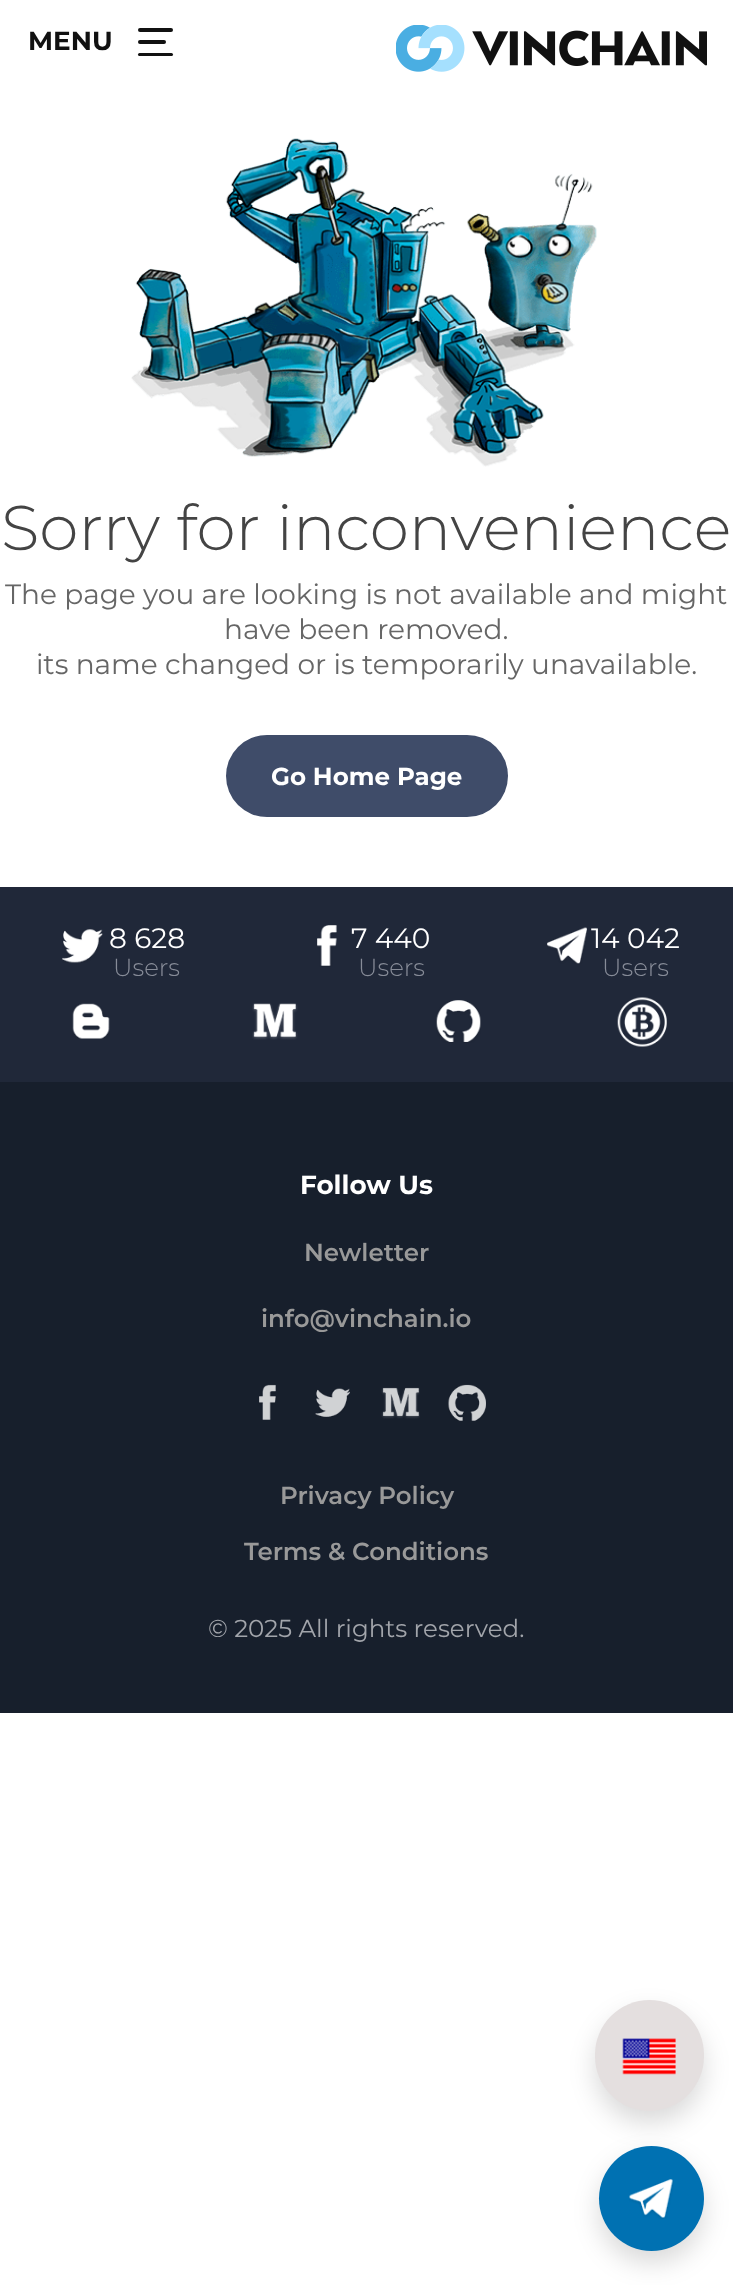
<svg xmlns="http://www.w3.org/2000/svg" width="733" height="2285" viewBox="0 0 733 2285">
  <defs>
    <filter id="blur1" x="-50%" y="-200%" width="200%" height="500%"><feGaussianBlur stdDeviation="13"/></filter>
  </defs>
  <rect width="100%" height="100%" fill="#ffffff"/>
  <text x="28" y="50" font-family="Montserrat" font-size="26.25" font-weight="bold" fill="#111111">MENU</text>
  <rect x="138" y="28" width="35" height="4" rx="2" fill="#111111"/>
  <rect x="138" y="40" width="28" height="4" rx="2" fill="#111111"/>
  <rect x="138" y="53" width="35" height="3" rx="1.5" fill="#111111"/>
  <image x="396" y="25" width="311" height="47" href="img1.png"/>
  <image x="131" y="138" width="466" height="329" href="img2.png"/>
  <text x="1" y="550" font-family="Montserrat" font-size="63" font-weight="300" fill="#444444">Sorry for inconvenience</text>
  <text x="5" y="604" font-family="Montserrat" font-size="28" fill="#666666">The page you are looking is not available and might</text>
  <text x="224" y="639" font-family="Montserrat" font-size="28" fill="#666666">have been removed.</text>
  <text x="36" y="674" font-family="Montserrat" font-size="28" fill="#666666">its name changed or is temporarily unavailable.</text>
  <rect x="226" y="735" width="282" height="82" rx="41" fill="#3f4c69"/>
  <text x="271" y="785" font-family="Montserrat" font-size="24.5" font-weight="bold" fill="#ffffff">Go Home Page</text>
  <rect x="0" y="887" width="733" height="195" fill="#202839"/>
  <image x="62" y="929" width="41" height="34" href="img3.png"/>
  <text x="109" y="948" font-family="Montserrat" font-size="28" fill="#ffffff">8 628</text>
  <text x="113" y="976" font-family="Montserrat" font-size="24.5" font-weight="300" fill="#878c98">Users</text>
  <image x="317" y="925" width="20" height="42" href="img4.png"/>
  <text x="351" y="948" font-family="Montserrat" font-size="28" fill="#ffffff">7 440</text>
  <text x="358" y="976" font-family="Montserrat" font-size="24.5" font-weight="300" fill="#878c98">Users</text>
  <image x="547" y="927" width="40" height="37" href="img5.png"/>
  <text x="591" y="948" font-family="Montserrat" font-size="28" fill="#ffffff">14 042</text>
  <text x="602" y="976" font-family="Montserrat" font-size="24.5" font-weight="300" fill="#878c98">Users</text>
  <image x="72" y="1003" width="38" height="36" href="img6.png"/>
  <image x="252" y="1003" width="46" height="37" href="img7.png"/>
  <image x="436" y="1000" width="45" height="43" href="img8.png"/>
  <image x="617" y="997" width="50" height="50" href="img9.png"/>
  <rect x="0" y="1082" width="733" height="631" fill="#171f2c"/>
  <text x="300" y="1194" font-family="Montserrat" font-size="26.25" font-weight="bold" fill="#ffffff">Follow Us</text>
  <text x="304" y="1261" font-family="Montserrat" font-size="24.5" font-weight="600" fill="#999999">Newletter</text>
  <text x="261" y="1327" font-family="Montserrat" font-size="24.5" font-weight="600" fill="#999999">info@vinchain.io</text>
  <image x="259" y="1384" width="17" height="36" href="img10.png"/>
  <image x="315" y="1388" width="35" height="29" href="img11.png"/>
  <image x="381" y="1387" width="39" height="32" href="img12.png"/>
  <image x="448" y="1384" width="38" height="37" href="img13.png"/>
  <text x="280" y="1504" font-family="Montserrat" font-size="24.5" font-weight="600" fill="#999999">Privacy Policy</text>
  <text x="244" y="1560" font-family="Montserrat" font-size="24.5" font-weight="600" fill="#999999">Terms &amp; Conditions</text>
  <text x="208" y="1637" font-family="Montserrat" font-size="24.5" fill="#a2a5ab">© 2025 All rights reserved.</text>
  <rect x="599" y="2158" width="105" height="105" rx="52.5" fill="#000000" fill-opacity="0.15" filter="url(#blur1)"/>
  <circle cx="651.5" cy="2198.5" r="52.5" fill="#0071b2"/>
  <rect x="595" y="2013" width="109" height="110" rx="54.5" fill="#000000" fill-opacity="0.15" filter="url(#blur1)"/>
  <rect x="595" y="2000" width="109" height="111" rx="54.5" fill="#e4dfdf"/>
  <image x="622" y="2038" width="54" height="37" href="img14.png"/>
  <image x="629" y="2179" width="45" height="40" href="img15.png"/>
</svg>
